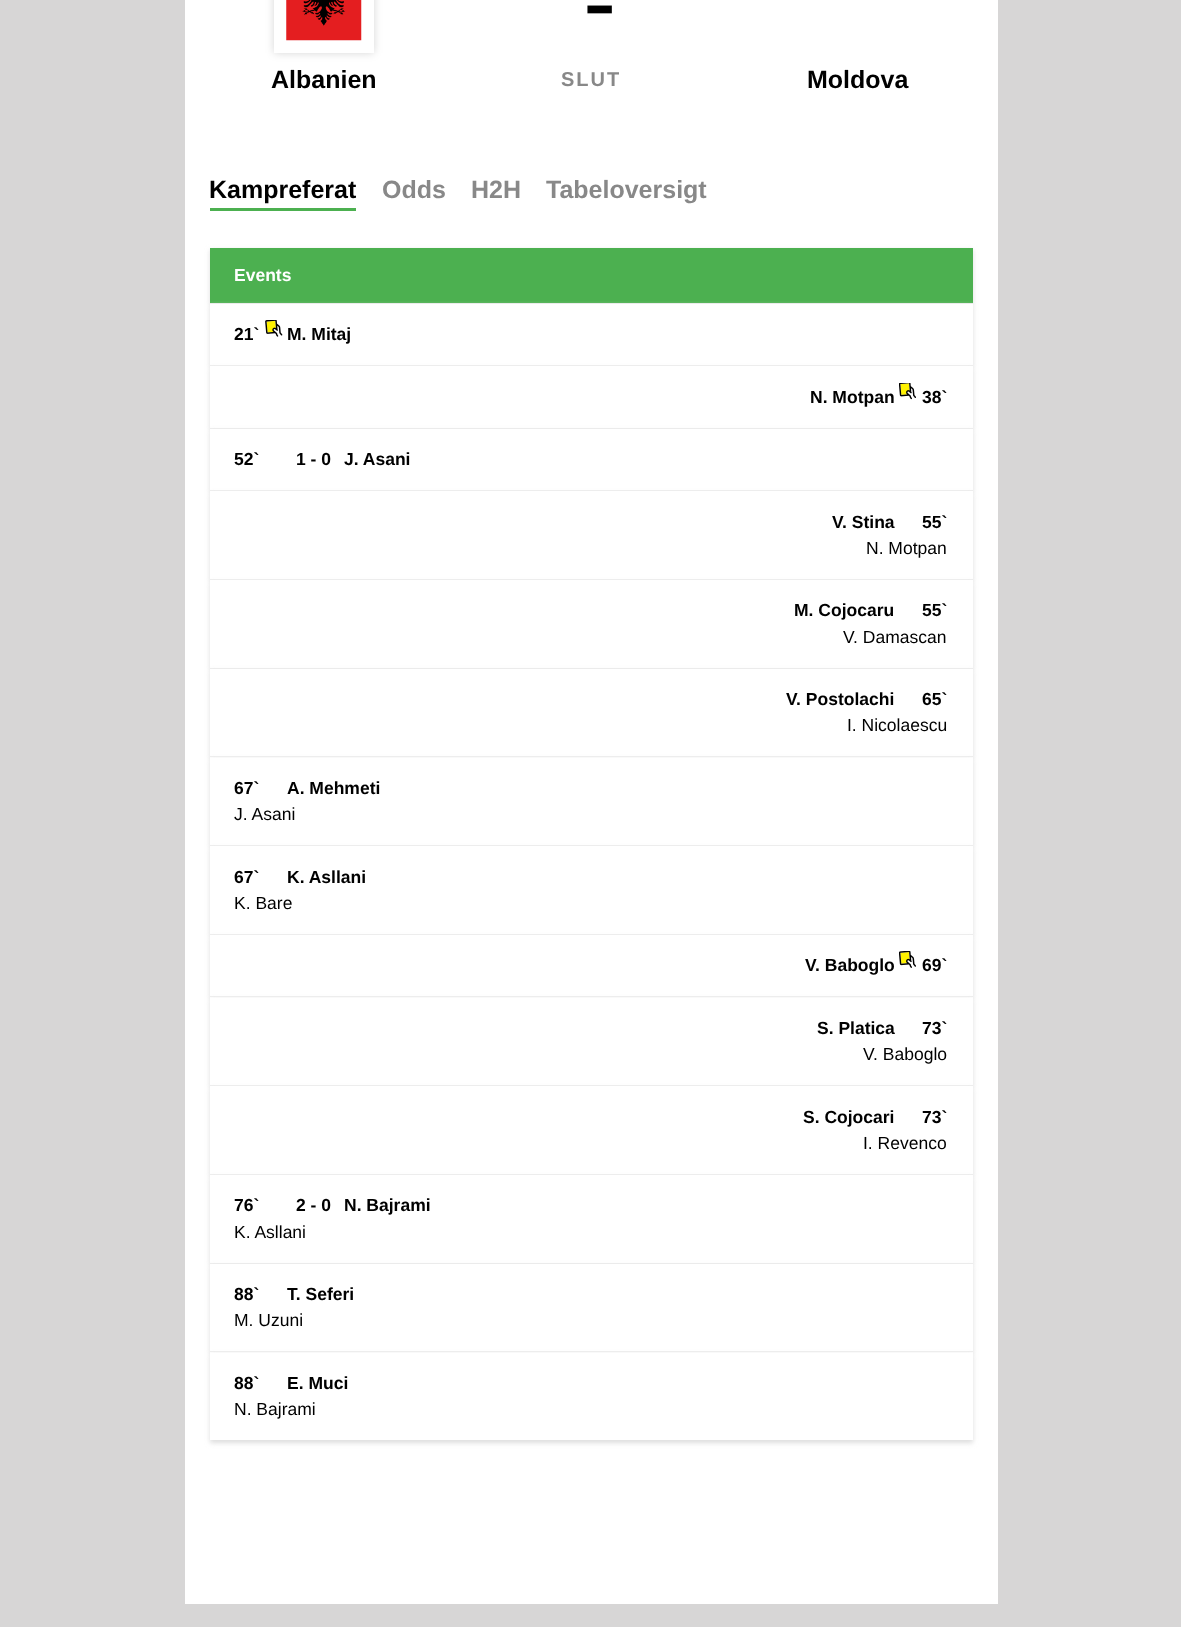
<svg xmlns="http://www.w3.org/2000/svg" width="1181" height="1627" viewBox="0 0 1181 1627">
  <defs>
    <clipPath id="clip1"><path d="M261 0H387V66H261ZM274-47H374V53H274Z" clip-rule="evenodd"/></clipPath>
    <filter id="blur1" x="-50%" y="-200%" width="200%" height="500%"><feGaussianBlur stdDeviation="4"/></filter>
    <filter id="blur2" x="-50%" y="-200%" width="200%" height="500%"><feGaussianBlur stdDeviation="2.5"/></filter>
  </defs>
  <rect width="100%" height="100%" fill="#d7d6d6"/>
  <rect x="185" y="0" width="813" height="1604" fill="#ffffff"/>
  <text x="583" y="36" font-family="Liberation Sans" font-size="100" letter-spacing="-10" fill="#000000">-</text>
  <text x="561" y="86" font-family="Liberation Sans" font-size="20" font-weight="bold" letter-spacing="2" fill="#888888">SLUT</text>
  <g clip-path="url(#clip1)">
    <rect x="274" y="-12" width="100" height="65" fill="#000000" fill-opacity="0.16" filter="url(#blur1)"/>
  </g>
  <image x="286" y="0" width="76" height="41" href="img1.png"/>
  <text x="271" y="88" font-family="Liberation Sans" font-size="25" font-weight="bold" fill="#000000">Albanien</text>
  <text x="807" y="88" font-family="Liberation Sans" font-size="25" font-weight="bold" fill="#000000">Moldova</text>
  <rect x="210" y="208" width="146" height="3" fill="#4cb050"/>
  <text x="209" y="198" font-family="Liberation Sans" font-size="25" font-weight="bold" fill="#000000">Kampreferat</text>
  <text x="382" y="198" font-family="Liberation Sans" font-size="25" font-weight="bold" fill="#888888">Odds</text>
  <text x="471" y="198" font-family="Liberation Sans" font-size="25" font-weight="bold" fill="#888888">H2H</text>
  <text x="546" y="198" font-family="Liberation Sans" font-size="25" font-weight="bold" fill="#888888">Tabeloversigt</text>
  <rect x="210" y="250" width="763" height="56" fill="#dddddd" filter="url(#blur2)"/>
  <rect x="210" y="248" width="763" height="55" fill="#4cb050"/>
  <rect x="210" y="303" width="763" height="1" fill="#eeeeee"/>
  <text x="234" y="281" font-family="Liberation Sans" font-size="17.5" font-weight="bold" fill="#ffffff">Events</text>
  <rect x="210" y="306" width="763" height="63" fill="#dddddd" filter="url(#blur2)"/>
  <rect x="210" y="304" width="763" height="61" fill="#ffffff"/>
  <rect x="210" y="365" width="763" height="1" fill="#eeeeee"/>
  <text x="234" y="340" font-family="Liberation Sans" font-size="17.5" font-weight="bold" fill="#000000">21`</text>
  <image x="265" y="320" width="18" height="17" href="img2.png"/>
  <text x="287" y="340" font-family="Liberation Sans" font-size="17.5" font-weight="bold" fill="#000000">M. Mitaj</text>
  <rect x="210" y="369" width="763" height="62" fill="#dddddd" filter="url(#blur2)"/>
  <rect x="210" y="366" width="763" height="62" fill="#ffffff"/>
  <rect x="210" y="428" width="763" height="1" fill="#eeeeee"/>
  <text x="810" y="403" font-family="Liberation Sans" font-size="17.5" font-weight="bold" fill="#000000">N. Motpan</text>
  <image x="899" y="383" width="17" height="17" href="img3.png"/>
  <text x="922" y="403" font-family="Liberation Sans" font-size="17.5" font-weight="bold" fill="#000000">38`</text>
  <rect x="210" y="431" width="763" height="63" fill="#dddddd" filter="url(#blur2)"/>
  <rect x="210" y="429" width="763" height="61" fill="#ffffff"/>
  <rect x="210" y="490" width="763" height="1" fill="#eeeeee"/>
  <text x="234" y="465" font-family="Liberation Sans" font-size="17.5" font-weight="bold" fill="#000000">52`</text>
  <text x="296" y="465" font-family="Liberation Sans" font-size="17.5" font-weight="bold" fill="#000000">1 - 0</text>
  <text x="344" y="465" font-family="Liberation Sans" font-size="17.5" font-weight="bold" fill="#000000">J. Asani</text>
  <rect x="210" y="494" width="763" height="89" fill="#dddddd" filter="url(#blur2)"/>
  <rect x="210" y="491" width="763" height="88" fill="#ffffff"/>
  <rect x="210" y="579" width="763" height="1" fill="#eeeeee"/>
  <text x="832" y="528" font-family="Liberation Sans" font-size="17.5" font-weight="bold" fill="#000000">V. Stina</text>
  <text x="922" y="528" font-family="Liberation Sans" font-size="17.5" font-weight="bold" fill="#000000">55`</text>
  <text x="866" y="554" font-family="Liberation Sans" font-size="17.5" fill="#000000">N. Motpan</text>
  <rect x="210" y="583" width="763" height="88" fill="#dddddd" filter="url(#blur2)"/>
  <rect x="210" y="580" width="763" height="88" fill="#ffffff"/>
  <rect x="210" y="668" width="763" height="1" fill="#eeeeee"/>
  <text x="794" y="616" font-family="Liberation Sans" font-size="17.5" font-weight="bold" fill="#000000">M. Cojocaru</text>
  <text x="922" y="616" font-family="Liberation Sans" font-size="17.5" font-weight="bold" fill="#000000">55`</text>
  <text x="843" y="643" font-family="Liberation Sans" font-size="17.5" fill="#000000">V. Damascan</text>
  <rect x="210" y="671" width="763" height="89" fill="#dddddd" filter="url(#blur2)"/>
  <rect x="210" y="669" width="763" height="89" fill="#ffffff"/>
  <rect x="210" y="756" width="763" height="1" fill="#eeeeee"/>
  <text x="786" y="705" font-family="Liberation Sans" font-size="17.5" font-weight="bold" fill="#000000">V. Postolachi</text>
  <text x="922" y="705" font-family="Liberation Sans" font-size="17.5" font-weight="bold" fill="#000000">65`</text>
  <text x="847" y="731" font-family="Liberation Sans" font-size="17.5" fill="#000000">I. Nicolaescu</text>
  <rect x="210" y="760" width="763" height="89" fill="#dddddd" filter="url(#blur2)"/>
  <rect x="210" y="758" width="763" height="87" fill="#ffffff"/>
  <rect x="210" y="845" width="763" height="1" fill="#eeeeee"/>
  <text x="234" y="794" font-family="Liberation Sans" font-size="17.5" font-weight="bold" fill="#000000">67`</text>
  <text x="287" y="794" font-family="Liberation Sans" font-size="17.5" font-weight="bold" fill="#000000">A. Mehmeti</text>
  <text x="234" y="820" font-family="Liberation Sans" font-size="17.5" fill="#000000">J. Asani</text>
  <rect x="210" y="849" width="763" height="89" fill="#dddddd" filter="url(#blur2)"/>
  <rect x="210" y="846" width="763" height="88" fill="#ffffff"/>
  <rect x="210" y="934" width="763" height="1" fill="#eeeeee"/>
  <text x="234" y="883" font-family="Liberation Sans" font-size="17.5" font-weight="bold" fill="#000000">67`</text>
  <text x="287" y="883" font-family="Liberation Sans" font-size="17.5" font-weight="bold" fill="#000000">K. Asllani</text>
  <text x="234" y="909" font-family="Liberation Sans" font-size="17.5" fill="#000000">K. Bare</text>
  <rect x="210" y="938" width="763" height="62" fill="#dddddd" filter="url(#blur2)"/>
  <rect x="210" y="935" width="763" height="63" fill="#ffffff"/>
  <rect x="210" y="996" width="763" height="1" fill="#eeeeee"/>
  <text x="805" y="971" font-family="Liberation Sans" font-size="17.5" font-weight="bold" fill="#000000">V. Baboglo</text>
  <image x="899" y="951" width="17" height="17" href="img4.png"/>
  <text x="922" y="971" font-family="Liberation Sans" font-size="17.5" font-weight="bold" fill="#000000">69`</text>
  <rect x="210" y="1000" width="763" height="89" fill="#dddddd" filter="url(#blur2)"/>
  <rect x="210" y="998" width="763" height="87" fill="#ffffff"/>
  <rect x="210" y="1085" width="763" height="1" fill="#eeeeee"/>
  <text x="817" y="1034" font-family="Liberation Sans" font-size="17.5" font-weight="bold" fill="#000000">S. Platica</text>
  <text x="922" y="1034" font-family="Liberation Sans" font-size="17.5" font-weight="bold" fill="#000000">73`</text>
  <text x="863" y="1060" font-family="Liberation Sans" font-size="17.5" fill="#000000">V. Baboglo</text>
  <rect x="210" y="1089" width="763" height="89" fill="#dddddd" filter="url(#blur2)"/>
  <rect x="210" y="1086" width="763" height="88" fill="#ffffff"/>
  <rect x="210" y="1174" width="763" height="1" fill="#eeeeee"/>
  <text x="803" y="1123" font-family="Liberation Sans" font-size="17.5" font-weight="bold" fill="#000000">S. Cojocari</text>
  <text x="922" y="1123" font-family="Liberation Sans" font-size="17.5" font-weight="bold" fill="#000000">73`</text>
  <text x="863" y="1149" font-family="Liberation Sans" font-size="17.5" fill="#000000">I. Revenco</text>
  <rect x="210" y="1178" width="763" height="88" fill="#dddddd" filter="url(#blur2)"/>
  <rect x="210" y="1175" width="763" height="88" fill="#ffffff"/>
  <rect x="210" y="1263" width="763" height="1" fill="#eeeeee"/>
  <text x="234" y="1211" font-family="Liberation Sans" font-size="17.5" font-weight="bold" fill="#000000">76`</text>
  <text x="296" y="1211" font-family="Liberation Sans" font-size="17.5" font-weight="bold" fill="#000000">2 - 0</text>
  <text x="344" y="1211" font-family="Liberation Sans" font-size="17.5" font-weight="bold" fill="#000000">N. Bajrami</text>
  <text x="234" y="1238" font-family="Liberation Sans" font-size="17.5" fill="#000000">K. Asllani</text>
  <rect x="210" y="1266" width="763" height="89" fill="#dddddd" filter="url(#blur2)"/>
  <rect x="210" y="1264" width="763" height="89" fill="#ffffff"/>
  <rect x="210" y="1351" width="763" height="1" fill="#eeeeee"/>
  <text x="234" y="1300" font-family="Liberation Sans" font-size="17.5" font-weight="bold" fill="#000000">88`</text>
  <text x="287" y="1300" font-family="Liberation Sans" font-size="17.5" font-weight="bold" fill="#000000">T. Seferi</text>
  <text x="234" y="1326" font-family="Liberation Sans" font-size="17.5" fill="#000000">M. Uzuni</text>
  <rect x="210" y="1355" width="763" height="88" fill="#dddddd" filter="url(#blur2)"/>
  <rect x="210" y="1353" width="763" height="87" fill="#ffffff"/>
  <text x="234" y="1389" font-family="Liberation Sans" font-size="17.5" font-weight="bold" fill="#000000">88`</text>
  <text x="287" y="1389" font-family="Liberation Sans" font-size="17.5" font-weight="bold" fill="#000000">E. Muci</text>
  <text x="234" y="1415" font-family="Liberation Sans" font-size="17.5" fill="#000000">N. Bajrami</text>
</svg>
